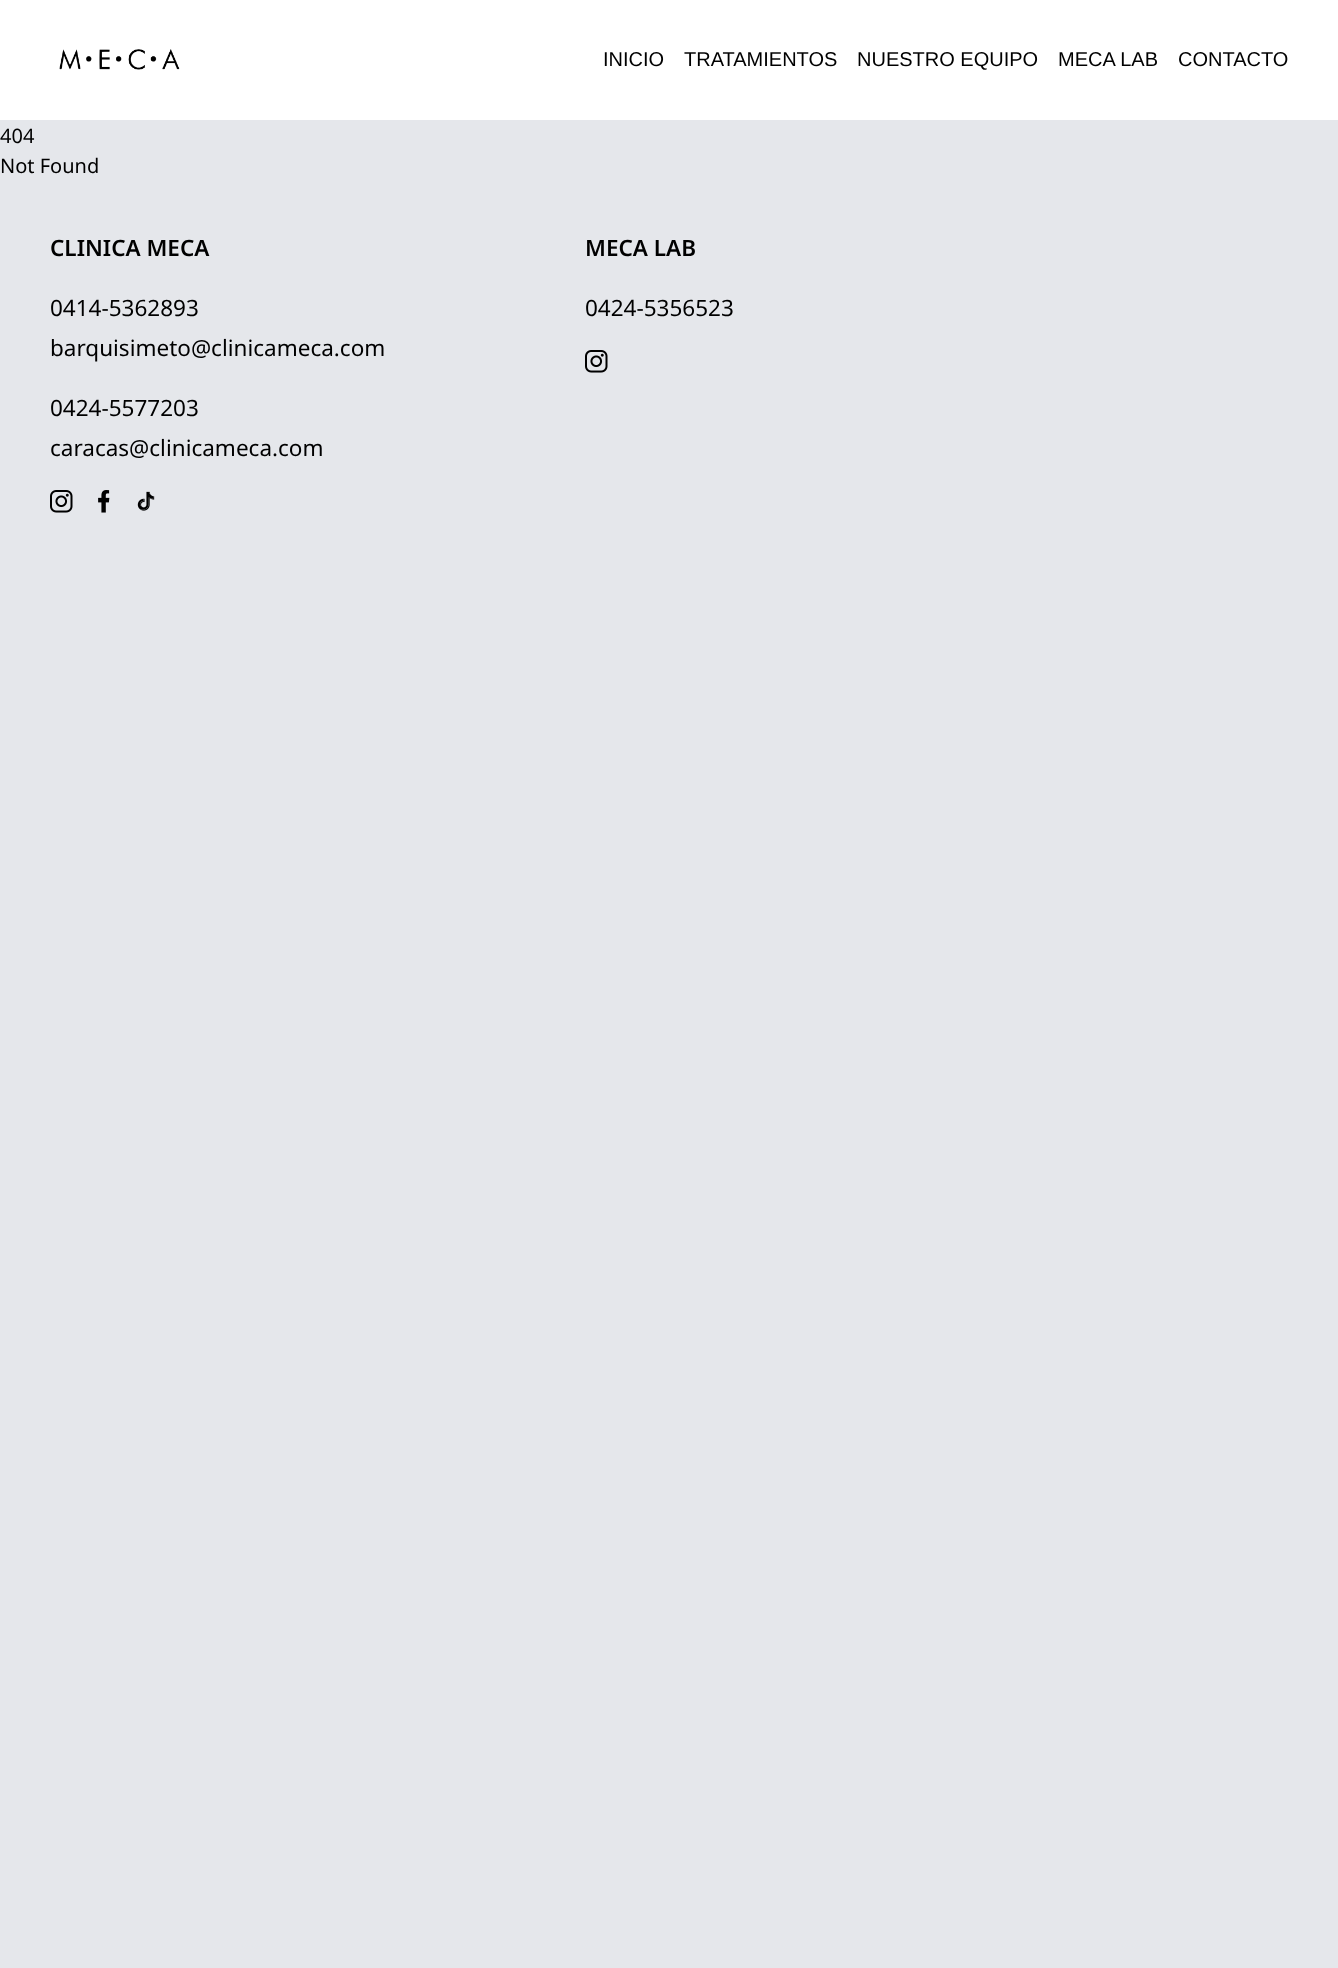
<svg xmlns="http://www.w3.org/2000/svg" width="1338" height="1968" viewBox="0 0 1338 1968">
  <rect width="100%" height="100%" fill="#e5e7eb"/>
  <rect x="0" y="0" width="1338" height="120" fill="#ffffff"/>
  <image x="59" y="49" width="121" height="21" href="img1.png"/>
  <text x="603" y="66" font-family="Liberation Sans" font-size="20" fill="#000000">INICIO</text>
  <text x="684" y="66" font-family="Liberation Sans" font-size="20" fill="#000000">TRATAMIENTOS</text>
  <text x="857" y="66" font-family="Liberation Sans" font-size="20" fill="#000000">NUESTRO EQUIPO</text>
  <text x="1058" y="66" font-family="Liberation Sans" font-size="20" fill="#000000">MECA LAB</text>
  <text x="1178" y="66" font-family="Liberation Sans" font-size="20" fill="#000000">CONTACTO</text>
  <text x="0" y="143" font-family="Noto Sans" font-size="20" fill="#000000">404</text>
  <text x="0" y="173" font-family="Noto Sans" font-size="20" fill="#000000">Not Found</text>
  <text x="50" y="256" font-family="Noto Sans" font-size="22.5" font-weight="600" fill="#000000">CLINICA MECA</text>
  <text x="50" y="316" font-family="Noto Sans" font-size="22.5" fill="#000000">0414-5362893</text>
  <text x="50" y="356" font-family="Noto Sans" font-size="22.5" fill="#000000">barquisimeto@clinicameca.com</text>
  <text x="50" y="416" font-family="Noto Sans" font-size="22.5" fill="#000000">0424-5577203</text>
  <text x="50" y="456" font-family="Noto Sans" font-size="22.5" fill="#000000">caracas@clinicameca.com</text>
  <image x="50" y="490" width="23" height="23" href="img2.png"/>
  <image x="98" y="490" width="12" height="23" href="img3.png"/>
  <image x="137" y="491" width="18" height="20" href="img4.png"/>
  <text x="585" y="256" font-family="Noto Sans" font-size="22.5" font-weight="600" fill="#000000">MECA LAB</text>
  <text x="585" y="316" font-family="Noto Sans" font-size="22.5" fill="#000000">0424-5356523</text>
  <image x="585" y="350" width="23" height="23" href="img2.png"/>
</svg>
